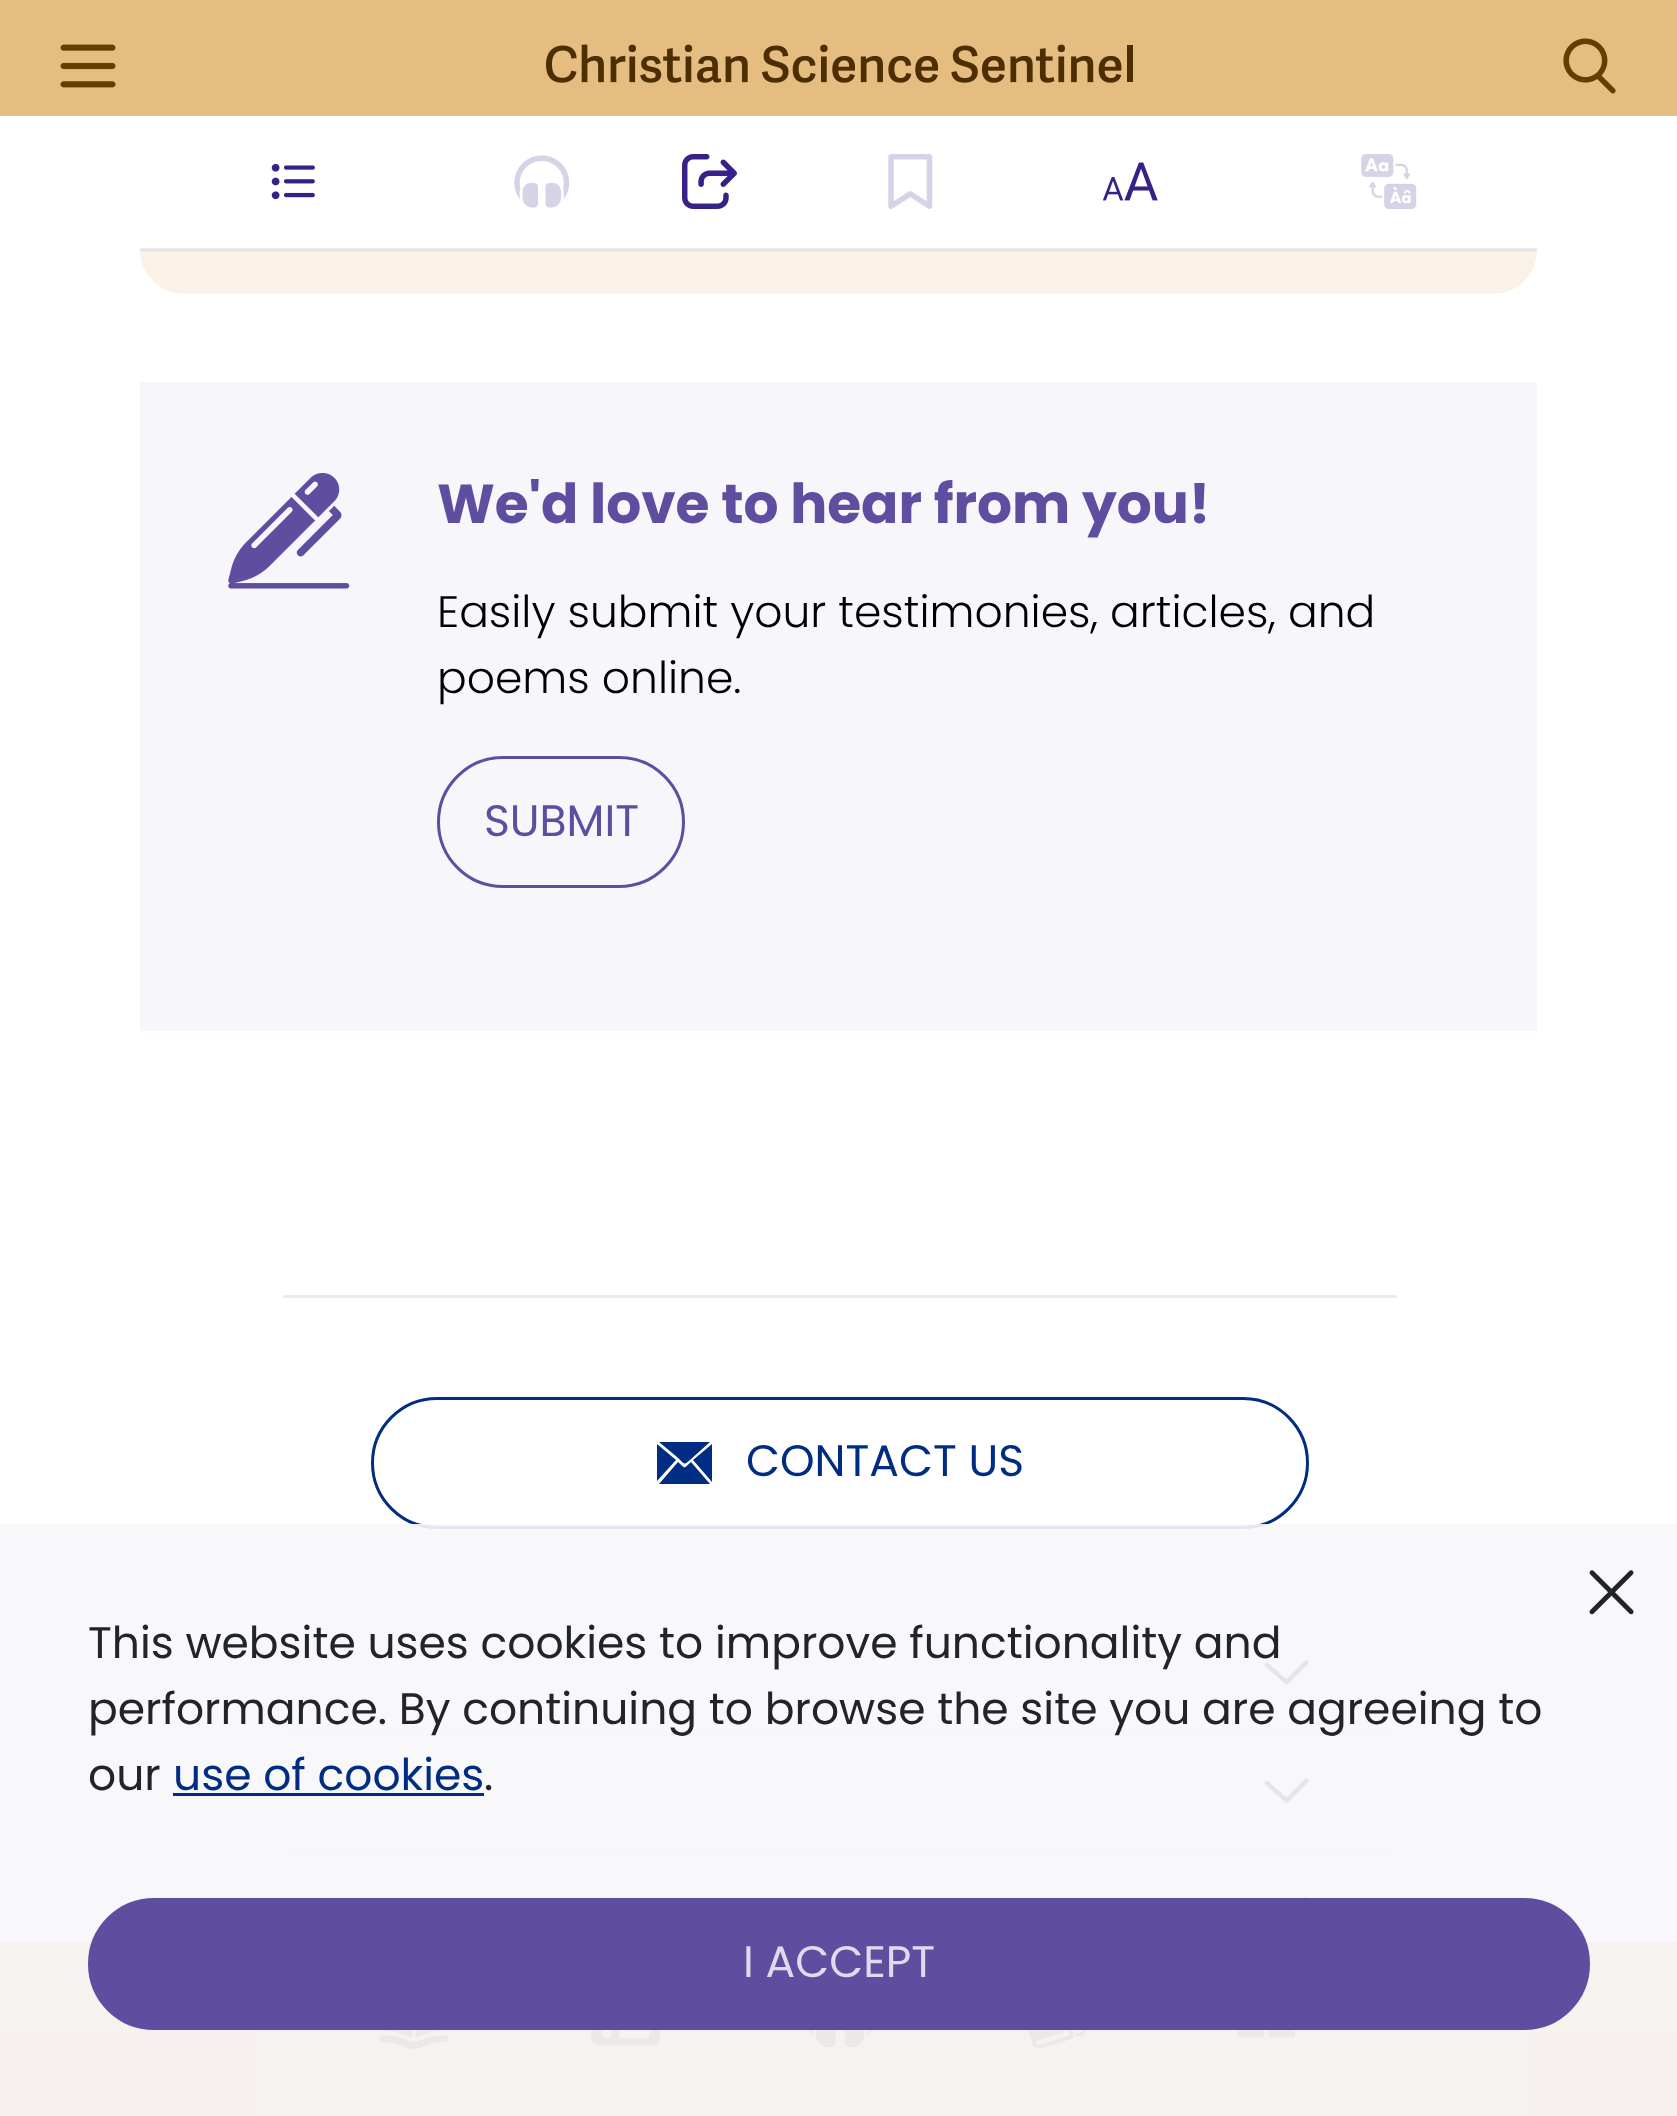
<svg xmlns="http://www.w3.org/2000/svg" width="1677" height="2116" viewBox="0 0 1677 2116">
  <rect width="100%" height="100%" fill="#ffffff"/>
  <rect x="140" y="-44" width="1397" height="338" rx="44" fill="#faf2e6"/>
  <rect x="0" y="0" width="1677" height="116" fill="#e5bd80"/>
  <image x="60" y="44" width="56" height="44" href="img1.png"/>
  <image x="546" y="44" width="587" height="39" href="img2.png"/>
  <image x="1563" y="38" width="53" height="56" href="img3.png"/>
  <rect x="140" y="116" width="1397" height="134" fill="#ffffff"/>
  <rect x="140" y="248" width="1397" height="3" fill="#372189" fill-opacity="0.1"/>
  <image x="271" y="163" width="44" height="37" href="img4.png"/>
  <image x="514" y="155" width="56" height="53" href="img5.png"/>
  <image x="682" y="154" width="55" height="55" href="img6.png"/>
  <image x="888" y="154" width="45" height="55" href="img7.png"/>
  <image x="1102" y="162" width="56" height="39" href="img8.png"/>
  <image x="1361" y="154" width="56" height="55" href="img9.png"/>
  <rect x="140" y="382" width="1397" height="649" fill="#f7f6fa"/>
  <image x="228" y="473" width="122" height="116" href="img10.png"/>
  <text x="437" y="523" font-family="Poppins" font-size="55" font-weight="bold" fill="#5f4da0">We'd love to hear from you!</text>
  <text x="437" y="627" font-family="Poppins" font-size="44" font-weight="300" fill="#000000">Easily submit your testimonies, articles, and</text>
  <text x="437" y="693" font-family="Poppins" font-size="44" font-weight="300" fill="#000000">poems online.</text>
  <rect x="438.5" y="757.5" width="245" height="129" rx="64.5" fill="none" stroke="#5f4da0" stroke-width="3"/>
  <text x="484" y="836" font-family="Poppins" font-size="44" fill="#5f4da0">SUBMIT</text>
  <rect x="283" y="1295" width="1114" height="3" fill="#ebe9f3"/>
  <rect x="372.5" y="1398.5" width="935" height="129" rx="64.5" fill="none" stroke="#002d83" stroke-width="3"/>
  <path d="M657 1444V1481L676 1460ZM712 1482V1444L693 1460ZM710 1442H659L677 1457C685 1464 683 1466 690 1460ZM691 1462C683 1469 686 1469 678 1462L659 1484H710Z" fill="#002d83"/>
  <text x="746" y="1476" font-family="Poppins" font-size="44" fill="#002d83">CONTACT US</text>
  <rect x="283" y="1733" width="1114" height="3" fill="#ebe9f3"/>
  <image x="1264" y="1660" width="45" height="25" href="img11.png"/>
  <rect x="283" y="1851" width="1114" height="3" fill="#ebe9f3"/>
  <image x="1264" y="1778" width="45" height="25" href="img12.png"/>
  <image x="1304" y="1896" width="5" height="2" href="img13.png"/>
  <rect x="0" y="1942" width="1677" height="174" fill="#e5bd80"/>
  <image x="379" y="2030" width="70" height="19" href="img15.png"/>
  <image x="591" y="2030" width="69" height="16" href="img16.png"/>
  <image x="808" y="2030" width="64" height="17" href="img17.png"/>
  <image x="1028" y="2030" width="58" height="19" href="img18.png"/>
  <image x="1237" y="2030" width="59" height="8" href="img19.png"/>
  <rect x="0" y="1524" width="1677" height="592" fill="#f7f6fa" fill-opacity="0.92"/>
  <image x="1589" y="1570" width="45" height="45" href="img14.png"/>
  <text x="88" y="1658" font-family="Poppins" font-size="44" fill="#212529">This website uses cookies to improve functionality and</text>
  <text x="88" y="1724" font-family="Poppins" font-size="44" fill="#212529">performance. By continuing to browse the site you are agreeing to</text>
  <text x="88" y="1790" font-family="Poppins" font-size="44" fill="#212529">our</text>
  <text x="173" y="1790" font-family="Poppins" font-size="44" fill="#002d83">use of cookies</text>
  <rect x="173" y="1793" width="311" height="3" fill="#002d83"/>
  <text x="484" y="1790" font-family="Poppins" font-size="44" fill="#212529">.</text>
  <rect x="89.5" y="1899.5" width="1499" height="129" rx="64.5" fill="#5f4da0" stroke="#5f4da0" stroke-width="3"/>
  <text x="743" y="1977" font-family="Poppins" font-size="44" fill="#dfdbec">I ACCEPT</text>
</svg>
